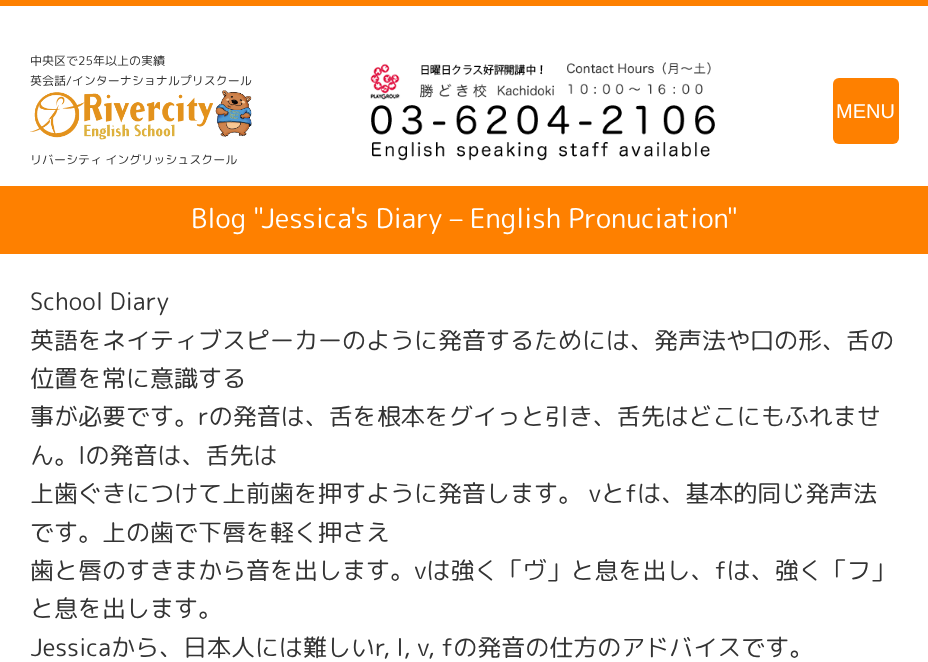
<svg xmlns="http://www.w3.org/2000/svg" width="928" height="662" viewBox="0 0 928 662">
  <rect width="100%" height="100%" fill="#ffffff"/>
  <rect x="0" y="0" width="928" height="6" fill="#fe8000"/>
  <text x="30" y="65" font-family="'Rounded Mplus 1c'" font-size="12" fill="#333333">中央区で25年以上の実績</text>
  <text x="30" y="85" font-family="'Rounded Mplus 1c'" font-size="12" fill="#333333">英会話/インターナショナルプリスクール</text>
  <image x="30" y="90" width="222" height="50" href="img1.png"/>
  <text x="30" y="164" font-family="'Rounded Mplus 1c'" font-size="12" fill="#333333">リバーシティ イングリッシュスクール</text>
  <image x="370" y="62" width="345" height="99" href="img2.png"/>
  <rect x="833" y="78" width="66" height="66" rx="6" fill="#fe8000"/>
  <text x="836" y="118" font-family="Liberation Sans" font-size="20" fill="#ffffff">MENU</text>
  <rect x="0" y="186" width="928" height="68" fill="#fe8000"/>
  <text x="191" y="228" font-family="'Rounded Mplus 1c'" font-size="27" fill="#ffffff">Blog "Jessica's Diary – English Pronuciation"</text>
  <text x="30" y="310" font-family="'Rounded Mplus 1c'" font-size="24" fill="#333333">School Diary</text>
  <text x="30" y="349" font-family="'Rounded Mplus 1c'" font-size="24" fill="#333333">英語をネイティブスピーカーのように発音するためには、発声法や口の形、舌の</text>
  <text x="30" y="387" font-family="'Rounded Mplus 1c'" font-size="24" fill="#333333">位置を常に意識する</text>
  <text x="30" y="425" font-family="'Rounded Mplus 1c'" font-size="24" fill="#333333">事が必要です。rの発音は、舌を根本をグイっと引き、舌先はどこにもふれませ</text>
  <text x="30" y="464" font-family="'Rounded Mplus 1c'" font-size="24" fill="#333333">ん。lの発音は、舌先は</text>
  <text x="30" y="502" font-family="'Rounded Mplus 1c'" font-size="24" fill="#333333">上歯ぐきにつけて上前歯を押すように発音します。 vとfは、基本的同じ発声法</text>
  <text x="30" y="541" font-family="'Rounded Mplus 1c'" font-size="24" fill="#333333">です。上の歯で下唇を軽く押さえ</text>
  <text x="30" y="579" font-family="'Rounded Mplus 1c'" font-size="24" fill="#333333">歯と唇のすきまから音を出します。vは強く「ヴ」と息を出し、fは、強く「フ」</text>
  <text x="30" y="617" font-family="'Rounded Mplus 1c'" font-size="24" fill="#333333">と息を出します。</text>
  <text x="30" y="656" font-family="'Rounded Mplus 1c'" font-size="24" fill="#333333">Jessicaから、日本人には難しいr, l, v, fの発音の仕方のアドバイスです。</text>
</svg>
